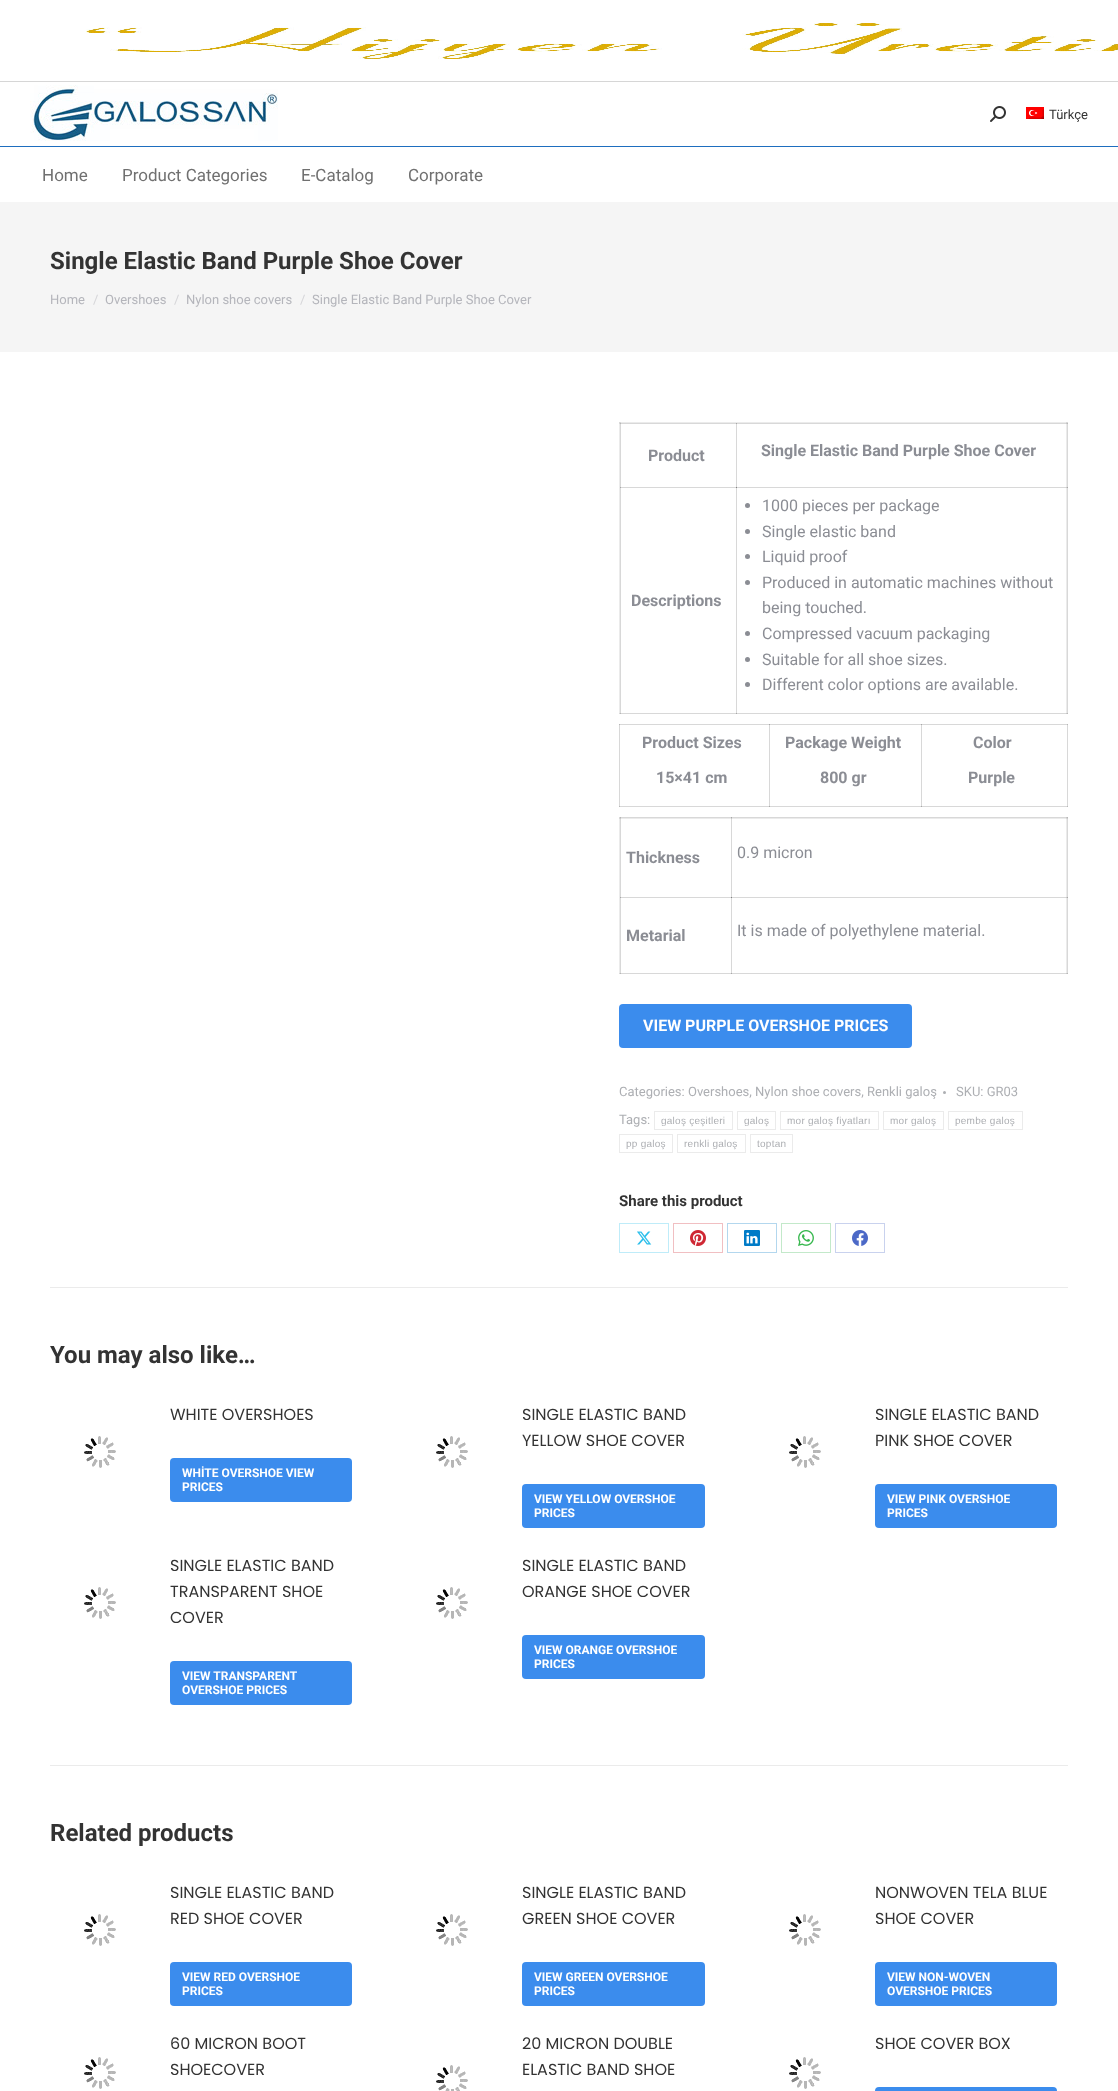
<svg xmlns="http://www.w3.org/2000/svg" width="1118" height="2091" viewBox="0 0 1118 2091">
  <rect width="100%" height="100%" fill="#ffffff"/>
  <image x="86" y="23" width="1032" height="36" href="img1.png"/>
  <rect x="0" y="81" width="1118" height="1" fill="#d6d6d6"/>
  <image x="30" y="85" width="248" height="56" href="img2.png"/>
  <image x="990" y="106" width="16" height="16" href="img3.png"/>
  <image x="1026" y="107" width="18" height="12" href="img4.png"/>
  <text x="1049" y="119" font-family="Roboto" font-size="13" fill="#333333">Türkçe</text>
  <rect x="0" y="146" width="1118" height="1" fill="#1e6ebf"/>
  <text x="42" y="181" font-family="Roboto" font-size="17" fill="#707070">Home</text>
  <text x="122" y="181" font-family="Roboto" font-size="17" fill="#707070">Product Categories</text>
  <text x="301" y="181" font-family="Roboto" font-size="17" fill="#707070">E-Catalog</text>
  <text x="408" y="181" font-family="Roboto" font-size="17" fill="#707070">Corporate</text>
  <rect x="0" y="202" width="1118" height="150" fill="#f5f5f5"/>
  <text x="50" y="269" font-family="Roboto" font-size="24" font-weight="bold" fill="#333333">Single Elastic Band Purple Shoe Cover</text>
  <text x="50" y="304" font-family="Roboto" font-size="13" fill="#b4b5bb">Home</text>
  <text x="93" y="304" font-family="Roboto" font-size="13" fill="#d5d5d8">/</text>
  <text x="105" y="304" font-family="Roboto" font-size="13" fill="#b4b5bb">Overshoes</text>
  <text x="174" y="304" font-family="Roboto" font-size="13" fill="#d5d5d8">/</text>
  <text x="186" y="304" font-family="Roboto" font-size="13" fill="#b4b5bb">Nylon shoe covers</text>
  <text x="300" y="304" font-family="Roboto" font-size="13" fill="#d5d5d8">/</text>
  <text x="312" y="304" font-family="Roboto" font-size="13" fill="#b4b5bb">Single Elastic Band Purple Shoe Cover</text>
  <rect x="619" y="713" width="449" height="1" fill="#ebebeb"/>
  <rect x="736" y="423" width="332" height="1" fill="#ebebeb"/>
  <rect x="736" y="487" width="332" height="1" fill="#ebebeb"/>
  <rect x="1067" y="487" width="1" height="227" fill="#000000" fill-opacity="0.08"/>
  <rect x="1067" y="423" width="1" height="65" fill="#000000" fill-opacity="0.08"/>
  <rect x="736" y="713" width="332" height="1" fill="#000000" fill-opacity="0.08"/>
  <rect x="736" y="487" width="1" height="227" fill="#000000" fill-opacity="0.08"/>
  <rect x="620" y="487" width="117" height="1" fill="#000000" fill-opacity="0.08"/>
  <rect x="736" y="487" width="1" height="227" fill="#000000" fill-opacity="0.08"/>
  <rect x="736" y="487" width="332" height="1" fill="#000000" fill-opacity="0.08"/>
  <rect x="736" y="423" width="1" height="65" fill="#000000" fill-opacity="0.08"/>
  <rect x="620" y="423" width="117" height="1" fill="#000000" fill-opacity="0.08"/>
  <rect x="736" y="423" width="1" height="65" fill="#000000" fill-opacity="0.08"/>
  <rect x="620" y="713" width="117" height="1" fill="#000000" fill-opacity="0.08"/>
  <rect x="620" y="487" width="1" height="227" fill="#000000" fill-opacity="0.08"/>
  <rect x="620" y="487" width="117" height="1" fill="#000000" fill-opacity="0.08"/>
  <rect x="620" y="423" width="1" height="65" fill="#000000" fill-opacity="0.08"/>
  <rect x="619" y="422" width="449" height="2" fill="#000000" fill-opacity="0.08"/>
  <rect x="1066" y="422" width="2" height="292" fill="#000000" fill-opacity="0.08"/>
  <rect x="619" y="422" width="2" height="292" fill="#000000" fill-opacity="0.08"/>
  <text x="648" y="461" font-family="Roboto" font-size="16" font-weight="bold" fill="#8b8d94">Product</text>
  <text x="761" y="456" font-family="Roboto" font-size="16" font-weight="bold" fill="#8b8d94">Single Elastic Band Purple Shoe Cover</text>
  <text x="631" y="606" font-family="Roboto" font-size="16" font-weight="bold" fill="#8b8d94">Descriptions</text>
  <circle cx="747.5" cy="505.5" r="2.5" fill="#8b8d94"/>
  <text x="762" y="511" font-family="Roboto" font-size="16" fill="#8b8d94">1000 pieces per package</text>
  <circle cx="747.5" cy="531.5" r="2.5" fill="#8b8d94"/>
  <text x="762" y="537" font-family="Roboto" font-size="16" fill="#8b8d94">Single elastic band</text>
  <circle cx="747.5" cy="556.5" r="2.5" fill="#8b8d94"/>
  <text x="762" y="562" font-family="Roboto" font-size="16" fill="#8b8d94">Liquid proof</text>
  <circle cx="747.5" cy="582.5" r="2.5" fill="#8b8d94"/>
  <text x="762" y="588" font-family="Roboto" font-size="16" fill="#8b8d94">Produced in automatic machines without</text>
  <text x="762" y="613" font-family="Roboto" font-size="16" fill="#8b8d94">being touched.</text>
  <circle cx="747.5" cy="633.5" r="2.5" fill="#8b8d94"/>
  <text x="762" y="639" font-family="Roboto" font-size="16" fill="#8b8d94">Compressed vacuum packaging</text>
  <circle cx="747.5" cy="659.5" r="2.5" fill="#8b8d94"/>
  <text x="762" y="665" font-family="Roboto" font-size="16" fill="#8b8d94">Suitable for all shoe sizes.</text>
  <circle cx="747.5" cy="684.5" r="2.5" fill="#8b8d94"/>
  <text x="762" y="690" font-family="Roboto" font-size="16" fill="#8b8d94">Different color options are available.</text>
  <rect x="619" y="724" width="449" height="1" fill="#ebebeb"/>
  <rect x="1067" y="724" width="1" height="83" fill="#000000" fill-opacity="0.08"/>
  <rect x="619" y="806" width="449" height="1" fill="#000000" fill-opacity="0.08"/>
  <rect x="619" y="724" width="1" height="83" fill="#000000" fill-opacity="0.08"/>
  <rect x="921" y="724" width="147" height="1" fill="#000000" fill-opacity="0.08"/>
  <rect x="1067" y="724" width="1" height="83" fill="#000000" fill-opacity="0.08"/>
  <rect x="921" y="806" width="147" height="1" fill="#000000" fill-opacity="0.08"/>
  <rect x="921" y="724" width="1" height="83" fill="#000000" fill-opacity="0.08"/>
  <rect x="769" y="724" width="153" height="1" fill="#000000" fill-opacity="0.08"/>
  <rect x="921" y="724" width="1" height="83" fill="#000000" fill-opacity="0.08"/>
  <rect x="769" y="806" width="153" height="1" fill="#000000" fill-opacity="0.08"/>
  <rect x="769" y="724" width="1" height="83" fill="#000000" fill-opacity="0.08"/>
  <rect x="619" y="724" width="151" height="1" fill="#000000" fill-opacity="0.08"/>
  <rect x="769" y="724" width="1" height="83" fill="#000000" fill-opacity="0.08"/>
  <rect x="619" y="806" width="151" height="1" fill="#000000" fill-opacity="0.08"/>
  <rect x="619" y="724" width="1" height="83" fill="#000000" fill-opacity="0.08"/>
  <text x="642" y="748" font-family="Roboto" font-size="16" font-weight="bold" fill="#8b8d94">Product Sizes</text>
  <text x="656" y="783" font-family="Roboto" font-size="16" font-weight="bold" fill="#8b8d94">15×41 cm</text>
  <text x="785" y="748" font-family="Roboto" font-size="16" font-weight="bold" fill="#8b8d94">Package Weight</text>
  <text x="820" y="783" font-family="Roboto" font-size="16" font-weight="bold" fill="#8b8d94">800 gr</text>
  <text x="973" y="748" font-family="Roboto" font-size="16" font-weight="bold" fill="#8b8d94">Color</text>
  <text x="968" y="783" font-family="Roboto" font-size="16" font-weight="bold" fill="#8b8d94">Purple</text>
  <rect x="619" y="973" width="449" height="1" fill="#ebebeb"/>
  <rect x="731" y="817" width="337" height="1" fill="#ebebeb"/>
  <rect x="731" y="897" width="337" height="1" fill="#ebebeb"/>
  <rect x="1067" y="897" width="1" height="77" fill="#000000" fill-opacity="0.08"/>
  <rect x="1067" y="817" width="1" height="81" fill="#000000" fill-opacity="0.08"/>
  <rect x="731" y="973" width="337" height="1" fill="#000000" fill-opacity="0.08"/>
  <rect x="731" y="897" width="1" height="77" fill="#000000" fill-opacity="0.08"/>
  <rect x="620" y="897" width="112" height="1" fill="#000000" fill-opacity="0.08"/>
  <rect x="731" y="897" width="1" height="77" fill="#000000" fill-opacity="0.08"/>
  <rect x="731" y="897" width="337" height="1" fill="#000000" fill-opacity="0.08"/>
  <rect x="731" y="817" width="1" height="81" fill="#000000" fill-opacity="0.08"/>
  <rect x="620" y="817" width="112" height="1" fill="#000000" fill-opacity="0.08"/>
  <rect x="731" y="817" width="1" height="81" fill="#000000" fill-opacity="0.08"/>
  <rect x="620" y="973" width="112" height="1" fill="#000000" fill-opacity="0.08"/>
  <rect x="620" y="897" width="1" height="77" fill="#000000" fill-opacity="0.08"/>
  <rect x="620" y="897" width="112" height="1" fill="#000000" fill-opacity="0.08"/>
  <rect x="620" y="817" width="1" height="81" fill="#000000" fill-opacity="0.08"/>
  <rect x="619" y="817" width="449" height="2" fill="#000000" fill-opacity="0.08"/>
  <rect x="1066" y="817" width="2" height="157" fill="#000000" fill-opacity="0.08"/>
  <rect x="619" y="817" width="2" height="157" fill="#000000" fill-opacity="0.08"/>
  <text x="626" y="863" font-family="Roboto" font-size="16" font-weight="bold" fill="#8b8d94">Thickness</text>
  <text x="737" y="858" font-family="Roboto" font-size="16" fill="#8b8d94">0.9 micron</text>
  <text x="626" y="941" font-family="Roboto" font-size="16" font-weight="bold" fill="#8b8d94">Metarial</text>
  <text x="737" y="936" font-family="Roboto" font-size="16" fill="#8b8d94">It is made of polyethylene material.</text>
  <rect x="619" y="1004" width="293" height="44" rx="4" fill="#3b8ced"/>
  <text x="643" y="1031" font-family="Roboto" font-size="16" font-weight="bold" fill="#ffffff">VIEW PURPLE OVERSHOE PRICES</text>
  <text x="619" y="1096" font-family="Roboto" font-size="13" fill="#adafb3">Categories: Overshoes, Nylon shoe covers, Renkli galoş</text>
  <circle cx="944.5" cy="1092.5" r="1.5" fill="#adafb3"/>
  <text x="956" y="1096" font-family="Roboto" font-size="13" fill="#adafb3">SKU: GR03</text>
  <text x="619" y="1124" font-family="Roboto" font-size="13" fill="#adafb3">Tags:</text>
  <rect x="654.5" y="1111.5" width="78" height="18" fill="none" stroke="#ebebeb"/>
  <text x="661" y="1124" font-family="Liberation Sans" font-size="10" letter-spacing="0.25" fill="#adafb3">galoş çeşitleri</text>
  <rect x="737.5" y="1111.5" width="38" height="18" fill="none" stroke="#ebebeb"/>
  <text x="744" y="1124" font-family="Liberation Sans" font-size="10" letter-spacing="0.25" fill="#adafb3">galoş</text>
  <rect x="780.5" y="1111.5" width="98" height="18" fill="none" stroke="#ebebeb"/>
  <text x="787" y="1124" font-family="Liberation Sans" font-size="10" letter-spacing="0.25" fill="#adafb3">mor galoş fiyatları</text>
  <rect x="883.5" y="1111.5" width="60" height="18" fill="none" stroke="#ebebeb"/>
  <text x="890" y="1124" font-family="Liberation Sans" font-size="10" letter-spacing="0.25" fill="#adafb3">mor galoş</text>
  <rect x="948.5" y="1111.5" width="74" height="18" fill="none" stroke="#ebebeb"/>
  <text x="955" y="1124" font-family="Liberation Sans" font-size="10" letter-spacing="0.25" fill="#adafb3">pembe galoş</text>
  <rect x="619.5" y="1134.5" width="53" height="18" fill="none" stroke="#ebebeb"/>
  <text x="626" y="1147" font-family="Liberation Sans" font-size="10" letter-spacing="0.25" fill="#adafb3">pp galoş</text>
  <rect x="677.5" y="1134.5" width="68" height="18" fill="none" stroke="#ebebeb"/>
  <text x="684" y="1147" font-family="Liberation Sans" font-size="10" letter-spacing="0.25" fill="#adafb3">renkli galoş</text>
  <rect x="750.5" y="1134.5" width="42" height="18" fill="none" stroke="#ebebeb"/>
  <text x="757" y="1147" font-family="Liberation Sans" font-size="10" letter-spacing="0.25" fill="#adafb3">toptan</text>
  <text x="619" y="1206" font-family="Roboto" font-size="15" font-weight="bold" fill="#333333">Share this product</text>
  <rect x="619.5" y="1223.5" width="49" height="29" fill="none" stroke="#bfecf9"/>
  <image x="637" y="1231" width="15" height="14" href="img5.png"/>
  <rect x="673.5" y="1223.5" width="49" height="29" fill="none" stroke="#f1bfc2"/>
  <image x="690" y="1230" width="16" height="16" href="img6.png"/>
  <rect x="727.5" y="1223.5" width="49" height="29" fill="none" stroke="#b3d7ee"/>
  <image x="744" y="1230" width="16" height="16" href="img7.png"/>
  <rect x="781.5" y="1223.5" width="49" height="29" fill="none" stroke="#c3e9ca"/>
  <image x="798" y="1230" width="16" height="16" href="img8.png"/>
  <rect x="835.5" y="1223.5" width="49" height="29" fill="none" stroke="#c9d2ee"/>
  <image x="852" y="1230" width="16" height="16" href="img9.png"/>
  <rect x="50" y="1287" width="1018" height="1" fill="#ebebeb"/>
  <text x="50" y="1363" font-family="Roboto" font-size="24" font-weight="bold" fill="#333333">You may also like…</text>
  <image x="84" y="1436" width="32" height="32" href="img10.png"/>
  <text x="170" y="1420" font-family="Poppins" font-size="16" fill="#333333">WHITE OVERSHOES</text>
  <rect x="170" y="1458" width="182" height="44" rx="4" fill="#3b8ced"/>
  <text x="182" y="1477" font-family="Roboto" font-size="12" font-weight="bold" fill="#ffffff">WHİTE OVERSHOE VIEW</text>
  <text x="182" y="1491" font-family="Roboto" font-size="12" font-weight="bold" fill="#ffffff">PRICES</text>
  <image x="436" y="1436" width="32" height="32" href="img10.png"/>
  <text x="522" y="1420" font-family="Poppins" font-size="16" fill="#333333">SINGLE ELASTIC BAND</text>
  <text x="522" y="1446" font-family="Poppins" font-size="16" fill="#333333">YELLOW SHOE COVER</text>
  <rect x="522" y="1484" width="183" height="44" rx="4" fill="#3b8ced"/>
  <text x="534" y="1503" font-family="Roboto" font-size="12" font-weight="bold" fill="#ffffff">VIEW YELLOW OVERSHOE</text>
  <text x="534" y="1517" font-family="Roboto" font-size="12" font-weight="bold" fill="#ffffff">PRICES</text>
  <image x="789" y="1436" width="32" height="32" href="img10.png"/>
  <text x="875" y="1420" font-family="Poppins" font-size="16" fill="#333333">SINGLE ELASTIC BAND</text>
  <text x="875" y="1446" font-family="Poppins" font-size="16" fill="#333333">PINK SHOE COVER</text>
  <rect x="875" y="1484" width="182" height="44" rx="4" fill="#3b8ced"/>
  <text x="887" y="1503" font-family="Roboto" font-size="12" font-weight="bold" fill="#ffffff">VIEW PINK OVERSHOE</text>
  <text x="887" y="1517" font-family="Roboto" font-size="12" font-weight="bold" fill="#ffffff">PRICES</text>
  <image x="84" y="1587" width="32" height="32" href="img10.png"/>
  <text x="170" y="1571" font-family="Poppins" font-size="16" fill="#333333">SINGLE ELASTIC BAND</text>
  <text x="170" y="1597" font-family="Poppins" font-size="16" fill="#333333">TRANSPARENT SHOE</text>
  <text x="170" y="1623" font-family="Poppins" font-size="16" fill="#333333">COVER</text>
  <rect x="170" y="1661" width="182" height="44" rx="4" fill="#3b8ced"/>
  <text x="182" y="1680" font-family="Roboto" font-size="12" font-weight="bold" fill="#ffffff">VIEW TRANSPARENT</text>
  <text x="182" y="1694" font-family="Roboto" font-size="12" font-weight="bold" fill="#ffffff">OVERSHOE PRICES</text>
  <image x="436" y="1587" width="32" height="32" href="img10.png"/>
  <text x="522" y="1571" font-family="Poppins" font-size="16" fill="#333333">SINGLE ELASTIC BAND</text>
  <text x="522" y="1597" font-family="Poppins" font-size="16" fill="#333333">ORANGE SHOE COVER</text>
  <rect x="522" y="1635" width="183" height="44" rx="4" fill="#3b8ced"/>
  <text x="534" y="1654" font-family="Roboto" font-size="12" font-weight="bold" fill="#ffffff">VIEW ORANGE OVERSHOE</text>
  <text x="534" y="1668" font-family="Roboto" font-size="12" font-weight="bold" fill="#ffffff">PRICES</text>
  <rect x="50" y="1765" width="1018" height="1" fill="#ebebeb"/>
  <text x="50" y="1841" font-family="Roboto" font-size="24" font-weight="bold" fill="#333333">Related products</text>
  <image x="84" y="1914" width="32" height="32" href="img10.png"/>
  <text x="170" y="1898" font-family="Poppins" font-size="16" fill="#333333">SINGLE ELASTIC BAND</text>
  <text x="170" y="1924" font-family="Poppins" font-size="16" fill="#333333">RED SHOE COVER</text>
  <rect x="170" y="1962" width="182" height="44" rx="4" fill="#3b8ced"/>
  <text x="182" y="1981" font-family="Roboto" font-size="12" font-weight="bold" fill="#ffffff">VIEW RED OVERSHOE</text>
  <text x="182" y="1995" font-family="Roboto" font-size="12" font-weight="bold" fill="#ffffff">PRICES</text>
  <image x="436" y="1914" width="32" height="32" href="img10.png"/>
  <text x="522" y="1898" font-family="Poppins" font-size="16" fill="#333333">SINGLE ELASTIC BAND</text>
  <text x="522" y="1924" font-family="Poppins" font-size="16" fill="#333333">GREEN SHOE COVER</text>
  <rect x="522" y="1962" width="183" height="44" rx="4" fill="#3b8ced"/>
  <text x="534" y="1981" font-family="Roboto" font-size="12" font-weight="bold" fill="#ffffff">VIEW GREEN OVERSHOE</text>
  <text x="534" y="1995" font-family="Roboto" font-size="12" font-weight="bold" fill="#ffffff">PRICES</text>
  <image x="789" y="1914" width="32" height="32" href="img10.png"/>
  <text x="875" y="1898" font-family="Poppins" font-size="16" fill="#333333">NONWOVEN TELA BLUE</text>
  <text x="875" y="1924" font-family="Poppins" font-size="16" fill="#333333">SHOE COVER</text>
  <rect x="875" y="1962" width="182" height="44" rx="4" fill="#3b8ced"/>
  <text x="887" y="1981" font-family="Roboto" font-size="12" font-weight="bold" fill="#ffffff">VIEW NON-WOVEN</text>
  <text x="887" y="1995" font-family="Roboto" font-size="12" font-weight="bold" fill="#ffffff">OVERSHOE PRICES</text>
  <image x="84" y="2057" width="32" height="32" href="img10.png"/>
  <text x="170" y="2049" font-family="Poppins" font-size="16" fill="#333333">60 MICRON BOOT</text>
  <text x="170" y="2075" font-family="Poppins" font-size="16" fill="#333333">SHOECOVER</text>
  <image x="436" y="2065" width="32" height="26" href="img11.png"/>
  <text x="522" y="2049" font-family="Poppins" font-size="16" fill="#333333">20 MICRON DOUBLE</text>
  <text x="522" y="2075" font-family="Poppins" font-size="16" fill="#333333">ELASTIC BAND SHOE</text>
  <text x="875" y="2049" font-family="Poppins" font-size="16" fill="#333333">SHOE COVER BOX</text>
  <rect x="875" y="2087" width="182" height="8" rx="4" fill="#3b8ced"/>
  <image x="789" y="2057" width="32" height="32" href="img10.png"/>
</svg>
